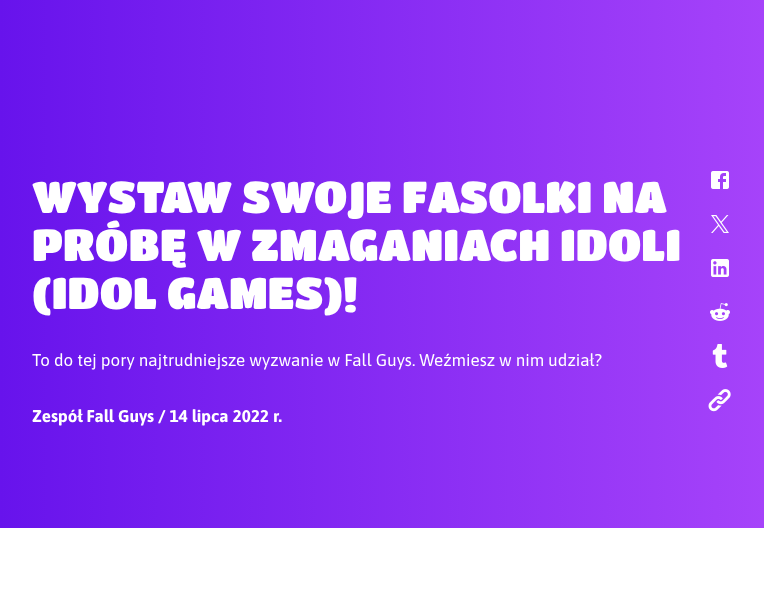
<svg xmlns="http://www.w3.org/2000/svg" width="764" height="608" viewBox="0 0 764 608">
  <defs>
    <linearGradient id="g1" gradientUnits="userSpaceOnUse" x1="764" y1="36" x2="0" y2="36"><stop offset="0" stop-color="#a643fa"/><stop offset="1" stop-color="#6713ec"/></linearGradient>
    <linearGradient id="g2" gradientUnits="userSpaceOnUse" x1="764" y1="300" x2="0" y2="300"><stop offset="0" stop-color="#a643fa"/><stop offset="1" stop-color="#6713ec"/></linearGradient>
  </defs>
  <rect width="100%" height="100%" fill="#ffffff"/>
  <rect x="0" y="0" width="764" height="72" fill="url(#g1)"/>
  <rect x="0" y="72" width="764" height="456" fill="url(#g2)"/>
  <text x="32" y="213" font-family="Titan One" font-size="44" fill="#ffffff">WYSTAW SWOJE FASOLKI NA</text>
  <text x="32" y="261" font-family="Titan One" font-size="44" fill="#ffffff">PRÓBĘ W ZMAGANIACH IDOLI</text>
  <text x="32" y="309" font-family="Titan One" font-size="44" fill="#ffffff">(IDOL GAMES)!</text>
  <text x="32" y="366" font-family="Asap" font-size="17" fill="#ffffff">To do tej pory najtrudniejsze wyzwanie w Fall Guys. Weźmiesz w nim udział?</text>
  <text x="32" y="422" font-family="Asap" font-size="17" font-weight="bold" fill="#ffffff">Zespół Fall Guys / 14 lipca 2022 r.</text>
  <image x="711" y="171" width="18" height="18" href="img1.png"/>
  <image x="711" y="215" width="18" height="18" href="img2.png"/>
  <image x="711" y="259" width="18" height="18" href="img3.png"/>
  <image x="710" y="303" width="20" height="18" href="img4.png"/>
  <image x="712" y="344" width="16" height="24" href="img5.png"/>
  <image x="708" y="389" width="23" height="23" href="img6.png"/>
</svg>
